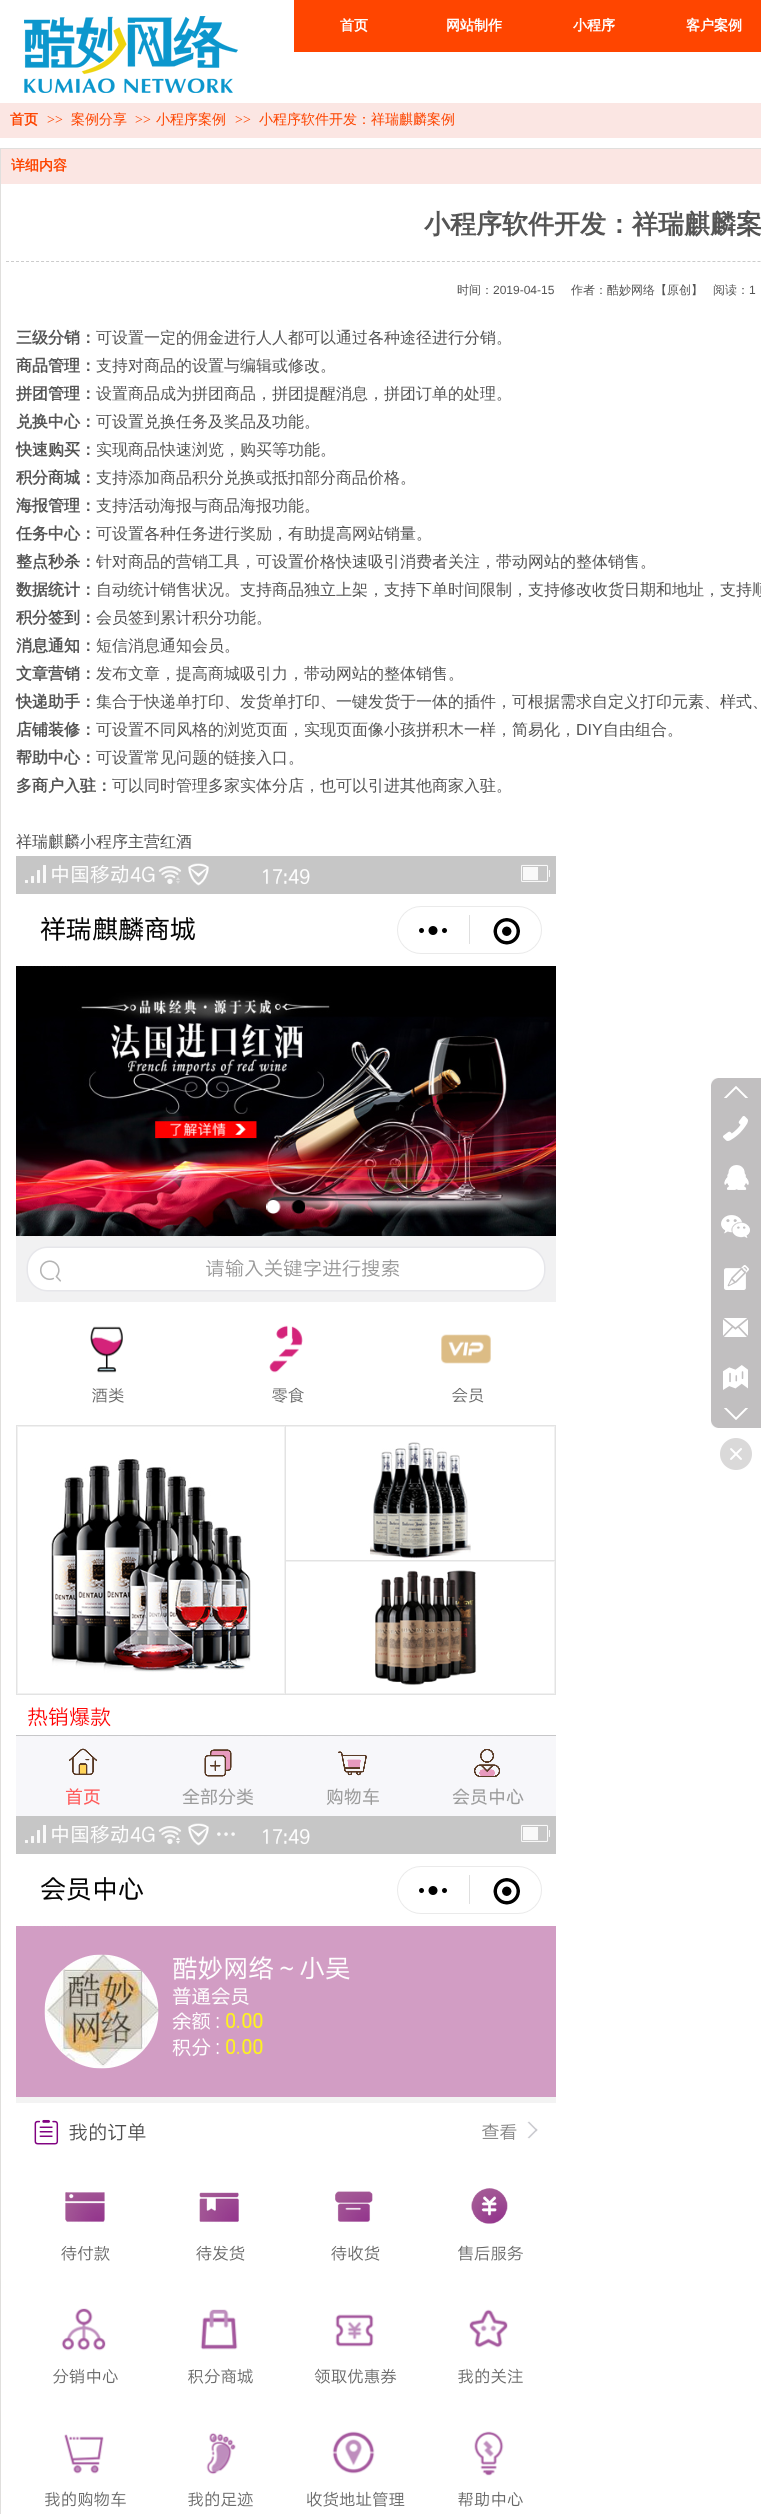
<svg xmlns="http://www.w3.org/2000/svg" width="761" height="2514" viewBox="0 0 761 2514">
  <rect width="100%" height="100%" fill="#ffffff"/>
  <image x="24" y="16" width="214" height="77" href="img1.png"/>
  <rect x="294" y="0" width="467" height="52" fill="#ff4500"/>
  <text x="340" y="30" font-family="WenQuanYi Zen Hei" font-size="14" font-weight="bold" fill="#ffffff">首页</text>
  <text x="446" y="30" font-family="WenQuanYi Zen Hei" font-size="14" font-weight="bold" fill="#ffffff">网站制作</text>
  <text x="573" y="30" font-family="WenQuanYi Zen Hei" font-size="14" font-weight="bold" fill="#ffffff">小程序</text>
  <text x="686" y="30" font-family="WenQuanYi Zen Hei" font-size="14" font-weight="bold" fill="#ffffff">客户案例</text>
  <rect x="0" y="103" width="761" height="35" fill="#fbe6e3"/>
  <text x="10" y="124" font-family="WenQuanYi Zen Hei" font-size="14" font-weight="bold" fill="#fd4500">首页</text>
  <text x="47" y="124" font-family="Liberation Serif" font-size="14" fill="#fd4500">&gt;&gt;</text>
  <text x="71" y="124" font-family="WenQuanYi Zen Hei" font-size="14" font-weight="500" fill="#fd4500">案例分享</text>
  <text x="135" y="124" font-family="Liberation Serif" font-size="14" fill="#fd4500">&gt;&gt;</text>
  <text x="156" y="124" font-family="WenQuanYi Zen Hei" font-size="14" font-weight="500" fill="#fd4500">小程序案例</text>
  <text x="235" y="124" font-family="Liberation Serif" font-size="14" fill="#fd4500">&gt;&gt;</text>
  <text x="259" y="124" font-family="WenQuanYi Zen Hei" font-size="14" font-weight="500" fill="#fd4500">小程序软件开发：祥瑞麒麟案例</text>
  <rect x="0.5" y="148.5" width="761" height="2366" fill="none" stroke="#e0dfdd"/>
  <rect x="1" y="149" width="760" height="35" fill="#fbe6e3"/>
  <text x="11" y="170" font-family="WenQuanYi Zen Hei" font-size="14" font-weight="bold" fill="#fd4500">详细内容</text>
  <path d="M6 261.5H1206" fill="none" stroke="#cccccc" stroke-dasharray="3 2.01"/>
  <text x="424" y="233" font-family="WenQuanYi Zen Hei" font-size="26" font-weight="bold" fill="#555555">小程序软件开发：祥瑞麒麟案</text>
  <text x="457" y="294" font-family="WenQuanYi Zen Hei" font-size="12" font-weight="500" fill="#555555">时间：</text>
  <text x="493" y="294" font-family="Liberation Sans" font-size="12" fill="#555555">2019-04-15</text>
  <text x="571" y="294" font-family="WenQuanYi Zen Hei" font-size="12" font-weight="500" fill="#555555">作者：酷妙网络【原创】</text>
  <text x="713" y="294" font-family="WenQuanYi Zen Hei" font-size="12" font-weight="500" fill="#555555">阅读：</text>
  <text x="749" y="294" font-family="Liberation Sans" font-size="12" fill="#555555">1</text>
  <text x="16" y="343" font-family="WenQuanYi Zen Hei" font-size="16" font-weight="bold" fill="#555555">三级分销：</text>
  <text x="96" y="343" font-family="WenQuanYi Zen Hei" font-size="16" font-weight="500" fill="#555555">可设置一定的佣金进行人人都可以通过各种途径进行分销。</text>
  <text x="16" y="371" font-family="WenQuanYi Zen Hei" font-size="16" font-weight="bold" fill="#555555">商品管理：</text>
  <text x="96" y="371" font-family="WenQuanYi Zen Hei" font-size="16" font-weight="500" fill="#555555">支持对商品的设置与编辑或修改。</text>
  <text x="16" y="399" font-family="WenQuanYi Zen Hei" font-size="16" font-weight="bold" fill="#555555">拼团管理：</text>
  <text x="96" y="399" font-family="WenQuanYi Zen Hei" font-size="16" font-weight="500" fill="#555555">设置商品成为拼团商品，拼团提醒消息，拼团订单的处理。</text>
  <text x="16" y="427" font-family="WenQuanYi Zen Hei" font-size="16" font-weight="bold" fill="#555555">兑换中心：</text>
  <text x="96" y="427" font-family="WenQuanYi Zen Hei" font-size="16" font-weight="500" fill="#555555">可设置兑换任务及奖品及功能。</text>
  <text x="16" y="455" font-family="WenQuanYi Zen Hei" font-size="16" font-weight="bold" fill="#555555">快速购买：</text>
  <text x="96" y="455" font-family="WenQuanYi Zen Hei" font-size="16" font-weight="500" fill="#555555">实现商品快速浏览，购买等功能。</text>
  <text x="16" y="483" font-family="WenQuanYi Zen Hei" font-size="16" font-weight="bold" fill="#555555">积分商城：</text>
  <text x="96" y="483" font-family="WenQuanYi Zen Hei" font-size="16" font-weight="500" fill="#555555">支持添加商品积分兑换或抵扣部分商品价格。</text>
  <text x="16" y="511" font-family="WenQuanYi Zen Hei" font-size="16" font-weight="bold" fill="#555555">海报管理：</text>
  <text x="96" y="511" font-family="WenQuanYi Zen Hei" font-size="16" font-weight="500" fill="#555555">支持活动海报与商品海报功能。</text>
  <text x="16" y="539" font-family="WenQuanYi Zen Hei" font-size="16" font-weight="bold" fill="#555555">任务中心：</text>
  <text x="96" y="539" font-family="WenQuanYi Zen Hei" font-size="16" font-weight="500" fill="#555555">可设置各种任务进行奖励，有助提高网站销量。</text>
  <text x="16" y="567" font-family="WenQuanYi Zen Hei" font-size="16" font-weight="bold" fill="#555555">整点秒杀：</text>
  <text x="96" y="567" font-family="WenQuanYi Zen Hei" font-size="16" font-weight="500" fill="#555555">针对商品的营销工具，可设置价格快速吸引消费者关注，带动网站的整体销售。</text>
  <text x="16" y="595" font-family="WenQuanYi Zen Hei" font-size="16" font-weight="bold" fill="#555555">数据统计：</text>
  <text x="96" y="595" font-family="WenQuanYi Zen Hei" font-size="16" font-weight="500" fill="#555555">自动统计销售状况。支持商品独立上架，支持下单时间限制，支持修改收货日期和地址，支持顺</text>
  <text x="16" y="623" font-family="WenQuanYi Zen Hei" font-size="16" font-weight="bold" fill="#555555">积分签到：</text>
  <text x="96" y="623" font-family="WenQuanYi Zen Hei" font-size="16" font-weight="500" fill="#555555">会员签到累计积分功能。</text>
  <text x="16" y="651" font-family="WenQuanYi Zen Hei" font-size="16" font-weight="bold" fill="#555555">消息通知：</text>
  <text x="96" y="651" font-family="WenQuanYi Zen Hei" font-size="16" font-weight="500" fill="#555555">短信消息通知会员。</text>
  <text x="16" y="679" font-family="WenQuanYi Zen Hei" font-size="16" font-weight="bold" fill="#555555">文章营销：</text>
  <text x="96" y="679" font-family="WenQuanYi Zen Hei" font-size="16" font-weight="500" fill="#555555">发布文章，提高商城吸引力，带动网站的整体销售。</text>
  <text x="16" y="707" font-family="WenQuanYi Zen Hei" font-size="16" font-weight="bold" fill="#555555">快递助手：</text>
  <text x="96" y="707" font-family="WenQuanYi Zen Hei" font-size="16" font-weight="500" fill="#555555">集合于快递单打印、发货单打印、一键发货于一体的插件，可根据需求自定义打印元素、样式、</text>
  <text x="16" y="735" font-family="WenQuanYi Zen Hei" font-size="16" font-weight="bold" fill="#555555">店铺装修：</text>
  <text x="96" y="735" font-family="WenQuanYi Zen Hei" font-size="16" font-weight="500" fill="#555555">可设置不同风格的浏览页面，实现页面像小孩拼积木一样，简易化，</text>
  <text x="576" y="735" font-family="Liberation Sans" font-size="16" fill="#555555">DIY</text>
  <text x="603" y="735" font-family="WenQuanYi Zen Hei" font-size="16" font-weight="500" fill="#555555">自由组合。</text>
  <text x="16" y="763" font-family="WenQuanYi Zen Hei" font-size="16" font-weight="bold" fill="#555555">帮助中心：</text>
  <text x="96" y="763" font-family="WenQuanYi Zen Hei" font-size="16" font-weight="500" fill="#555555">可设置常见问题的链接入口。</text>
  <text x="16" y="791" font-family="WenQuanYi Zen Hei" font-size="16" font-weight="bold" fill="#555555">多商户入驻：</text>
  <text x="112" y="791" font-family="WenQuanYi Zen Hei" font-size="16" font-weight="500" fill="#555555">可以同时管理多家实体分店，也可以引进其他商家入驻。</text>
  <text x="16" y="847" font-family="WenQuanYi Zen Hei" font-size="16" font-weight="500" fill="#555555">祥瑞麒麟小程序主营红酒</text>
  <image x="16" y="856" width="540" height="960" href="img2.png"/>
  <image x="16" y="1816" width="540" height="691" href="img3.png"/>
  <image x="711" y="1078" width="7" height="7" href="img4.png"/>
  <rect x="718" y="1078" width="43" height="7" fill="#c1bfc0"/>
  <rect x="711" y="1085" width="50" height="336" fill="#c1bfc0"/>
  <image x="724" y="1086" width="24" height="12" href="img5.png"/>
  <image x="723" y="1116" width="25" height="25" href="img6.png"/>
  <image x="724" y="1165" width="25" height="25" href="img7.png"/>
  <image x="721" y="1215" width="29" height="23" href="img8.png"/>
  <image x="724" y="1265" width="25" height="25" href="img9.png"/>
  <image x="723" y="1318" width="25" height="19" href="img10.png"/>
  <image x="723" y="1365" width="25" height="25" href="img11.png"/>
  <image x="724" y="1408" width="24" height="12" href="img12.png"/>
  <image x="711" y="1421" width="7" height="7" href="img13.png"/>
  <rect x="718" y="1421" width="43" height="7" fill="#c1bfc0"/>
  <image x="720" y="1438" width="32" height="32" href="img14.png"/>
</svg>
